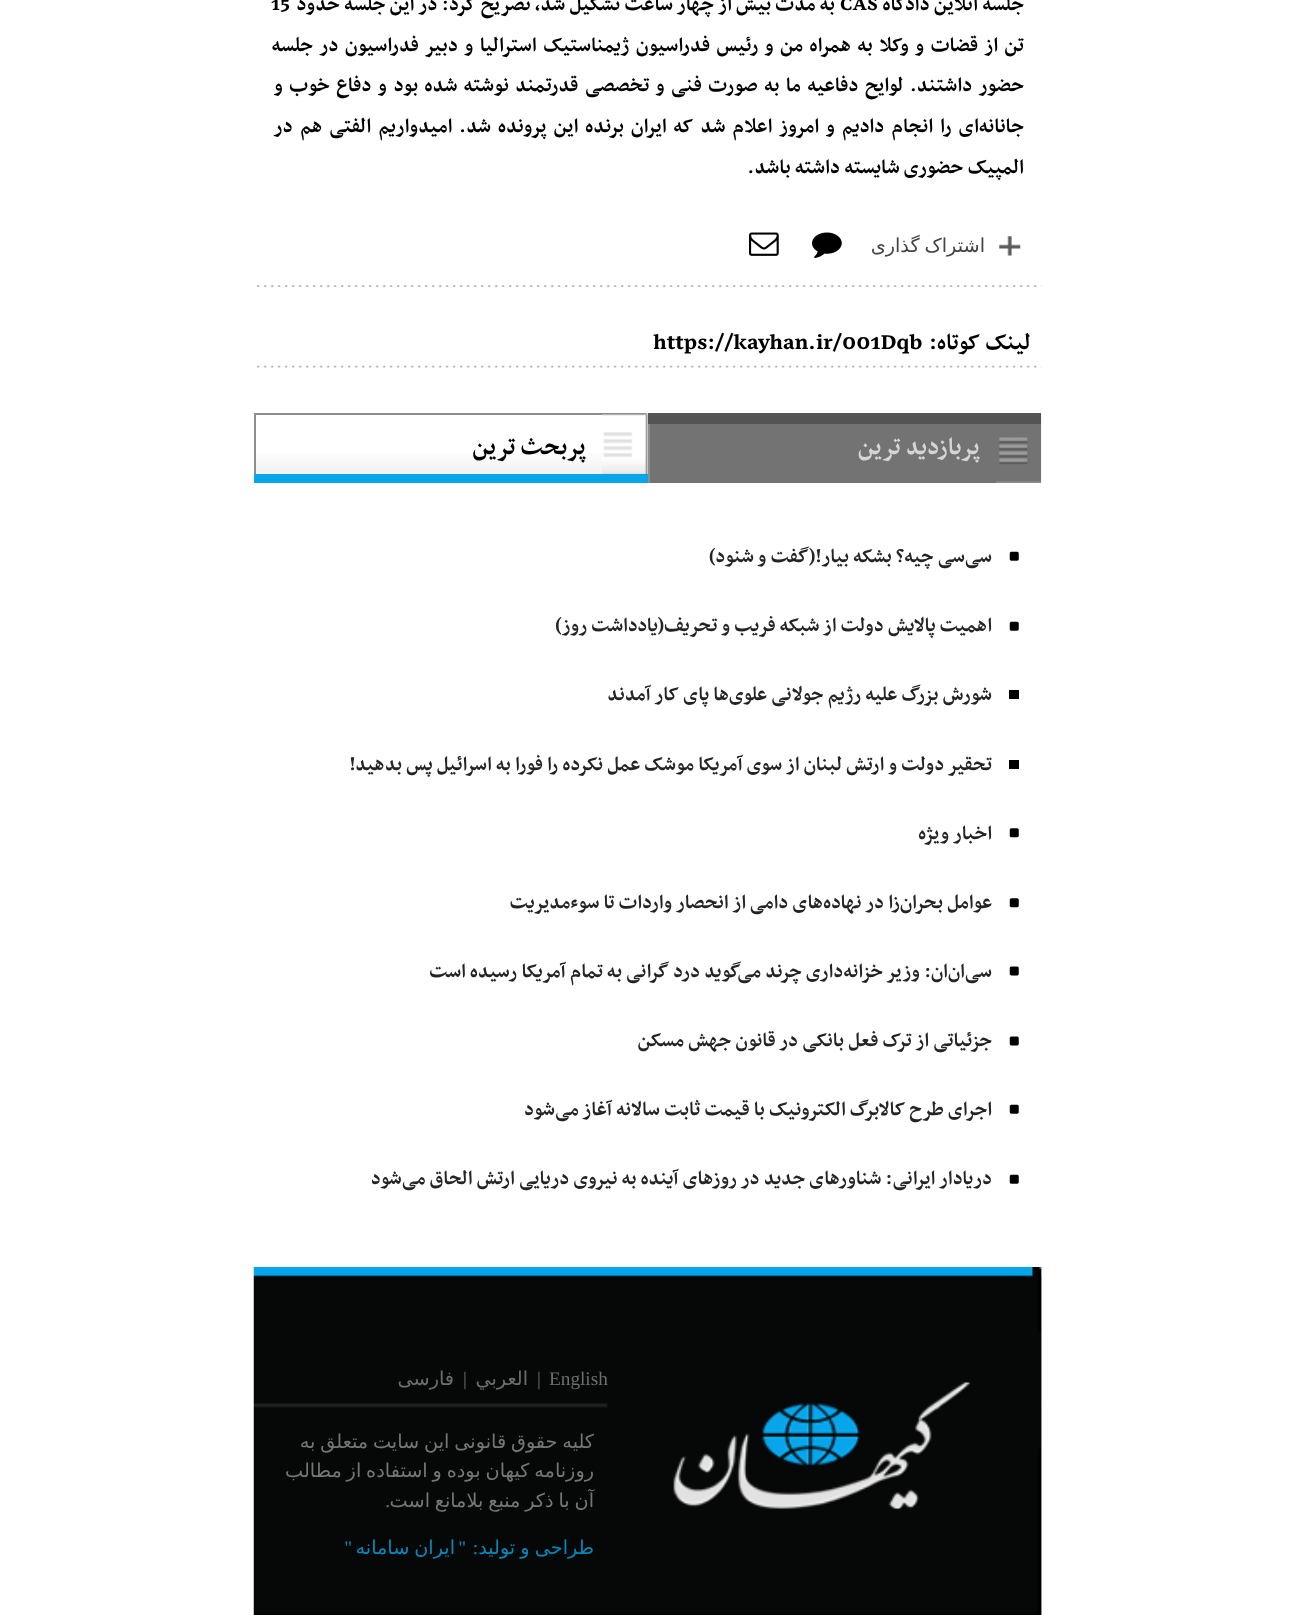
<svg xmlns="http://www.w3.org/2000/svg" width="1295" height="1615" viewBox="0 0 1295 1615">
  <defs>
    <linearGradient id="g1" gradientUnits="userSpaceOnUse" x1="429" y1="415" x2="429" y2="481"><stop offset="0.5" stop-color="#ffffff"/><stop offset="1" stop-color="#eeeeee"/></linearGradient>
  </defs>
  <rect width="100%" height="100%" fill="#ffffff"/>
  <text x="1024" y="10" font-family="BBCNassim" font-size="23.3" font-weight="bold" direction="rtl" fill="#000000">جلسه آنلاین دادگاه</text>
  <text x="840" y="10" font-family="BBCNassim" font-size="23.3" font-weight="bold" fill="#000000">CAS</text>
  <text x="835" y="10" font-family="BBCNassim" font-size="23.3" font-weight="bold" direction="rtl" fill="#000000">به مدت بیش از چهار ساعت تشکیل شد، تصریح کرد: در این جلسه حدود</text>
  <text x="271" y="10" font-family="BBCNassim" font-size="23.3" font-weight="bold" fill="#000000">15</text>
  <text x="1024" y="51" word-spacing="2.25" font-family="BBCNassim" font-size="23.3" font-weight="bold" direction="rtl" fill="#000000">تن از قضات و وکلا به همراه من و رئیس فدراسیون ژیمناستیک استرالیا و دبیر فدراسیون در جلسه</text>
  <text x="1024" y="91" word-spacing="2.25" font-family="BBCNassim" font-size="23.3" font-weight="bold" direction="rtl" fill="#000000">حضور داشتند. لوایح دفاعیه ما به صورت فنی و تخصصی قدرتمند نوشته شده بود و دفاع خوب و</text>
  <text x="1024" y="132" word-spacing="2.75" font-family="BBCNassim" font-size="23.3" font-weight="bold" direction="rtl" fill="#000000">جانانه‌ای را انجام دادیم و امروز اعلام شد که ایران برنده این پرونده شد. امیدواریم الفتی هم در</text>
  <text x="1024" y="173" font-family="BBCNassim" font-size="23.3" font-weight="bold" direction="rtl" fill="#000000">المپیک حضوری شایسته داشته باشد.</text>
  <image x="999" y="236" width="22" height="20" href="img1.png"/>
  <text x="985" y="252" word-spacing="-1.25" font-family="DejaVu Sans" font-size="19.25" direction="rtl" fill="#434343">اشتراک گذاری</text>
  <image x="812" y="232" width="30" height="26" href="img2.png"/>
  <image x="749" y="232" width="30" height="24" href="img3.png"/>
  <image x="256" y="285" width="786" height="2" href="img4.png"/>
  <text x="1031" y="349" font-family="BBCNassim" font-size="26.25" font-weight="bold" direction="rtl" fill="#000000">لینک کوتاه:</text>
  <text x="653" y="349" font-family="BBCNassim" font-size="26.25" font-weight="bold" fill="#000000">https://kayhan.ir/001Dqb</text>
  <image x="256" y="365" width="786" height="3" href="img5.png"/>
  <image x="996" y="413" width="46" height="70" href="img6.png"/>
  <rect x="650" y="424" width="346" height="59" fill="#737373"/>
  <rect x="648" y="424" width="2" height="59" fill="#8d8d8d"/>
  <rect x="648" y="413" width="393" height="11" fill="#545454"/>
  <text x="980" y="454" font-family="BBCNassim" font-size="28" font-weight="bold" direction="rtl" fill="#d5d5d5">پربازدید ترین</text>
  <image x="602" y="413" width="46" height="61" href="img7.png"/>
  <rect x="256" y="453" width="346" height="21" fill="url(#g1)"/>
  <rect x="254" y="413" width="348" height="2" fill="#8d8d8d"/>
  <rect x="254" y="413" width="2" height="61" fill="#8d8d8d"/>
  <text x="586" y="454" font-family="BBCNassim" font-size="28" font-weight="bold" direction="rtl" fill="#000000">پربحث ترین</text>
  <rect x="254" y="474" width="394" height="9" fill="#08a5ea"/>
  <image x="1009" y="551" width="10" height="10" href="img8.png"/>
  <text x="992" y="562" font-family="BBCNassim" font-size="22.75" font-weight="bold" direction="rtl" fill="#242424">سی‌سی چیه؟ بشکه بیار!(گفت و شنود)</text>
  <image x="1009" y="621" width="10" height="10" href="img8.png"/>
  <text x="992" y="631" font-family="BBCNassim" font-size="22.75" font-weight="bold" direction="rtl" fill="#242424">اهمیت پالایش دولت از شبکه فریب و تحریف(یادداشت روز)</text>
  <rect x="1009" y="690" width="10" height="9" fill="#000000"/>
  <text x="992" y="700" font-family="BBCNassim" font-size="22.75" font-weight="bold" direction="rtl" fill="#242424">شورش بزرگ علیه رژیم جولانی علوی‌ها پای کار آمدند</text>
  <rect x="1009" y="760" width="10" height="9" fill="#000000"/>
  <text x="992" y="770" font-family="BBCNassim" font-size="22.75" font-weight="bold" direction="rtl" fill="#242424">تحقیر دولت و ارتش لبنان از سوی آمریکا موشک‌ عمل نکرده را فورا به اسرائیل پس بدهید!</text>
  <image x="1009" y="828" width="10" height="10" href="img9.png"/>
  <text x="992" y="839" font-family="BBCNassim" font-size="22.75" font-weight="bold" direction="rtl" fill="#242424">اخبار ویژه</text>
  <image x="1009" y="898" width="10" height="10" href="img9.png"/>
  <text x="992" y="908" font-family="BBCNassim" font-size="22.75" font-weight="bold" direction="rtl" fill="#242424">عوامل بحران‌زا در نهاده‌های دامی</text>
  <text x="746" y="908" font-family="BBCNassim" font-size="22.75" font-weight="bold" direction="rtl" fill="#242424">از انحصار واردات تا سوءمدیریت</text>
  <image x="1009" y="966" width="10" height="10" href="img10.png"/>
  <text x="992" y="977" font-family="BBCNassim" font-size="22.75" font-weight="bold" direction="rtl" fill="#242424">سی‌ان‌ان: وزیر خزانه‌داری چرند می‌گوید درد گرانی به تمام آمریکا رسیده است</text>
  <image x="1009" y="1036" width="10" height="10" href="img10.png"/>
  <text x="992" y="1046" font-family="BBCNassim" font-size="22.75" font-weight="bold" direction="rtl" fill="#242424">جزئیاتی از ترک فعل بانکی در قانون جهش مسکن</text>
  <image x="1009" y="1104" width="10" height="10" href="img8.png"/>
  <text x="992" y="1115" font-family="BBCNassim" font-size="22.75" font-weight="bold" direction="rtl" fill="#242424">اجرای طرح کالابرگ الکترونیک با قیمت ثابت سالانه آغاز می‌شود</text>
  <image x="1009" y="1174" width="10" height="10" href="img8.png"/>
  <text x="992" y="1184" font-family="BBCNassim" font-size="22.75" font-weight="bold" direction="rtl" fill="#242424">دریادار ایرانی: شناورهای جدید در روزهای آینده به نیروی دریایی ارتش الحاق می‌شود</text>
  <image x="253" y="1267" width="789" height="348" href="img11.png"/>
  <image x="607" y="1267" width="435" height="348" href="img12.png"/>
  <text x="549" y="1385" font-family="Liberation Serif" font-size="19.25" fill="#6e6e6e">English</text>
  <text x="537" y="1385" font-family="Liberation Serif" font-size="19.25" fill="#6e6e6e">|</text>
  <text x="528" y="1385" font-family="DejaVu Sans" font-size="19.25" direction="rtl" fill="#6e6e6e">العربي</text>
  <text x="463" y="1385" font-family="Liberation Serif" font-size="19.25" fill="#6e6e6e">|</text>
  <text x="454" y="1385" font-family="DejaVu Sans" font-size="19.25" direction="rtl" fill="#6e6e6e">فارسی</text>
  <text x="594" y="1448" word-spacing="-1.25" font-family="DejaVu Sans" font-size="19.25" direction="rtl" fill="#767676">کلیه حقوق قانونی این سایت متعلق به</text>
  <text x="594" y="1477" word-spacing="-1.25" font-family="DejaVu Sans" font-size="19.25" direction="rtl" fill="#767676">روزنامه کیهان بوده و استفاده از مطالب</text>
  <text x="594" y="1507" word-spacing="-1.25" font-family="DejaVu Sans" font-size="19.25" direction="rtl" fill="#767676">آن با ذکر منبع بلامانع</text>
  <text x="430" y="1507" font-family="DejaVu Sans" font-size="19.25" direction="rtl" fill="#767676">است</text>
  <text x="390" y="1507" font-family="Liberation Serif" font-size="19.25" direction="rtl" fill="#767676">.</text>
  <text x="594" y="1554" word-spacing="-1" font-family="DejaVu Sans" font-size="19.25" direction="rtl" fill="#0688bc">طراحی و تولید</text>
  <text x="466" y="1554" font-family="Liberation Serif" font-size="19.25" direction="rtl" fill="#0688bc">"</text>
  <text x="455" y="1554" word-spacing="-1.25" font-family="DejaVu Sans" font-size="19.25" direction="rtl" fill="#0688bc">ایران سامانه</text>
  <text x="352" y="1554" font-family="Liberation Serif" font-size="19.25" direction="rtl" fill="#0688bc">"</text>
  <text x="478" y="1554" font-family="Liberation Serif" font-size="19.25" direction="rtl" fill="#0688bc">:</text>
</svg>
